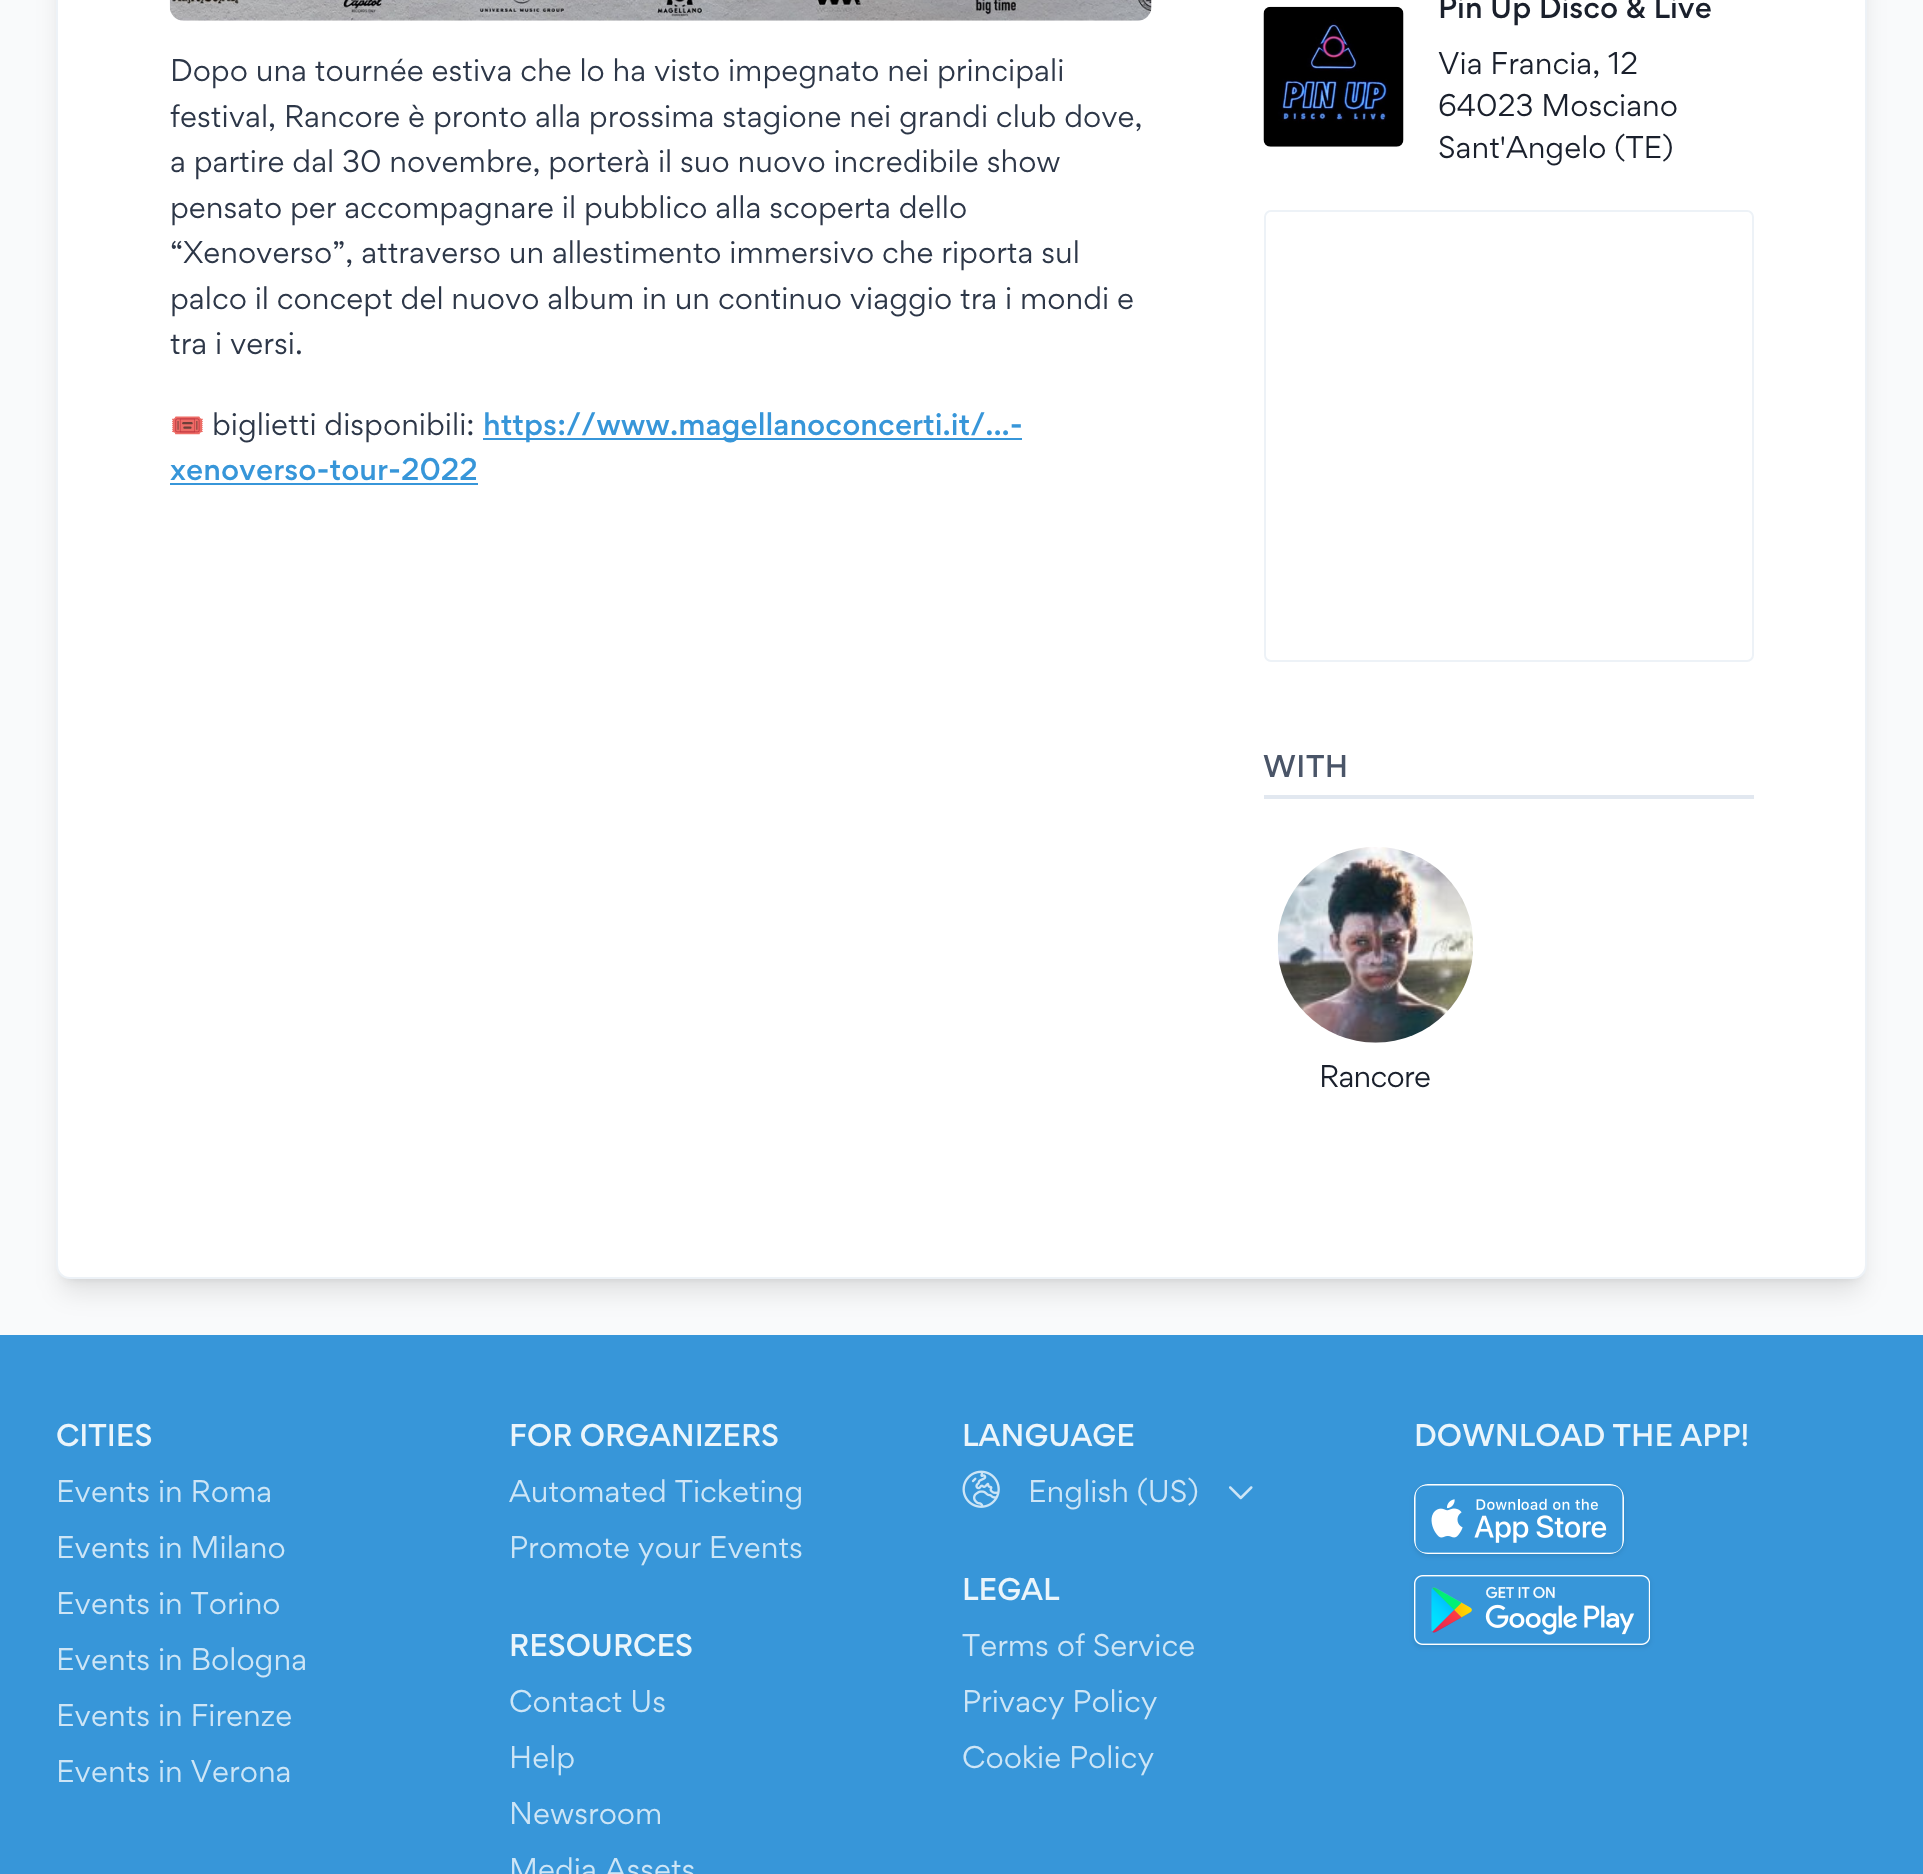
<svg xmlns="http://www.w3.org/2000/svg" width="1923" height="1874" viewBox="0 0 1923 1874">
  <defs>
    <filter id="blur1" x="-50%" y="-200%" width="200%" height="500%"><feGaussianBlur stdDeviation="5"/></filter>
    <filter id="blur2" x="-50%" y="-200%" width="200%" height="500%"><feGaussianBlur stdDeviation="13"/></filter>
    <clipPath id="clip1"><path d="M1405 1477H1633V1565H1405ZM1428 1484H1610C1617.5 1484 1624 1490.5 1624 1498V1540C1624 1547.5 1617.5 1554 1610 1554H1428C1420.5 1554 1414 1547.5 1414 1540V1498C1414 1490.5 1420.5 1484 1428 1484Z" clip-rule="evenodd"/></clipPath>
    <filter id="blur3" x="-50%" y="-200%" width="200%" height="500%"><feGaussianBlur stdDeviation="2.5"/></filter>
    <clipPath id="clip2"><path d="M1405 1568H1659V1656H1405ZM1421 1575H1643C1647 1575 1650 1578 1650 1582V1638C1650 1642 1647 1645 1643 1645H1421C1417 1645 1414 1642 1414 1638V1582C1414 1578 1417 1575 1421 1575Z" clip-rule="evenodd"/></clipPath>
  </defs>
  <rect width="100%" height="100%" fill="#f9fafb"/>
  <rect x="63" y="-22" width="1797" height="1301" rx="7" fill="#000000" fill-opacity="0.1" filter="url(#blur1)"/>
  <rect x="61" y="-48" width="1801" height="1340" rx="9" fill="#000000" fill-opacity="0.1" filter="url(#blur2)"/>
  <rect x="57" y="-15" width="1809" height="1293" rx="13" fill="#ffffff" stroke="#edf2f7" stroke-width="2"/>
  <image x="169" y="0" width="983" height="21" href="img1.png"/>
  <text x="170" y="81" font-family="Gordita" font-size="28" fill="#2d3748">Dopo una tournée estiva che lo ha visto impegnato nei principali</text>
  <text x="170" y="127" font-family="Gordita" font-size="28" fill="#2d3748">festival, Rancore è pronto alla prossima stagione nei grandi club dove,</text>
  <text x="170" y="172" font-family="Gordita" font-size="28" fill="#2d3748">a partire dal 30 novembre, porterà il suo nuovo incredibile show</text>
  <text x="170" y="218" font-family="Gordita" font-size="28" fill="#2d3748">pensato per accompagnare il pubblico alla scoperta dello</text>
  <text x="170" y="263" font-family="Gordita" font-size="28" fill="#2d3748">“Xenoverso”, attraverso un allestimento immersivo che riporta sul</text>
  <text x="170" y="309" font-family="Gordita" font-size="28" fill="#2d3748">palco il concept del nuovo album in un continuo viaggio tra i mondi e</text>
  <text x="170" y="354" font-family="Gordita" font-size="28" fill="#2d3748">tra i versi.</text>
  <text x="170" y="435" font-family="Noto Color Emoji" font-size="28" fill="#2d3748">🎟️</text>
  <text x="212" y="435" font-family="Gordita" font-size="28" fill="#2d3748">biglietti disponibili:</text>
  <rect x="483" y="438" width="539" height="2" fill="#3796d9"/>
  <text x="483" y="435" font-family="'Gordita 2'" font-size="28" fill="#3796d9">https://www.magellanoconcerti.it/...-</text>
  <text x="170" y="480" font-family="'Gordita 2'" font-size="28" fill="#3796d9">xenoverso-tour-2022</text>
  <rect x="170" y="483" width="308" height="2" fill="#3796d9"/>
  <image x="1263" y="6" width="141" height="141" href="img2.png"/>
  <text x="1438" y="18" font-family="'Gordita 2'" font-size="28" fill="#1a202c">Pin Up Disco &amp; Live</text>
  <text x="1438" y="74" font-family="Gordita" font-size="28" fill="#1a202c">Via Francia, 12</text>
  <text x="1438" y="116" font-family="Gordita" font-size="28" fill="#1a202c">64023 Mosciano</text>
  <text x="1438" y="158" font-family="Gordita" font-size="28" fill="#1a202c">Sant'Angelo (TE)</text>
  <rect x="1265" y="211" width="488" height="450" rx="6" fill="none" stroke="#edf2f7" stroke-width="2"/>
  <rect x="1264" y="795" width="490" height="4" fill="#e2e8f0"/>
  <text x="1263" y="777" font-family="'Gordita 2'" font-size="28" letter-spacing="0.5" fill="#4a5568">WITH</text>
  <image x="1277" y="847" width="196" height="196" href="img3.png"/>
  <text x="1319" y="1087" font-family="Gordita" font-size="28" letter-spacing="-0.75" fill="#1a202c">Rancore</text>
  <rect x="0" y="1335" width="1923" height="539" fill="#3796d9"/>
  <text x="56" y="1446" font-family="'Gordita 2'" font-size="28" fill="#ebf5fb">CITIES</text>
  <text x="56" y="1502" font-family="Gordita" font-size="28" fill="#cde5f6">Events in Roma</text>
  <text x="56" y="1558" font-family="Gordita" font-size="28" fill="#cde5f6">Events in Milano</text>
  <text x="56" y="1614" font-family="Gordita" font-size="28" fill="#cde5f6">Events in Torino</text>
  <text x="56" y="1670" font-family="Gordita" font-size="28" fill="#cde5f6">Events in Bologna</text>
  <text x="56" y="1726" font-family="Gordita" font-size="28" fill="#cde5f6">Events in Firenze</text>
  <text x="56" y="1782" font-family="Gordita" font-size="28" fill="#cde5f6">Events in Verona</text>
  <text x="509" y="1446" font-family="'Gordita 2'" font-size="28" fill="#ebf5fb">FOR ORGANIZERS</text>
  <text x="509" y="1502" font-family="Gordita" font-size="28" fill="#cde5f6">Automated Ticketing</text>
  <text x="509" y="1558" font-family="Gordita" font-size="28" fill="#cde5f6">Promote your Events</text>
  <text x="509" y="1656" font-family="'Gordita 2'" font-size="28" fill="#ebf5fb">RESOURCES</text>
  <text x="509" y="1712" font-family="Gordita" font-size="28" fill="#cde5f6">Contact Us</text>
  <text x="509" y="1768" font-family="Gordita" font-size="28" fill="#cde5f6">Help</text>
  <text x="509" y="1824" font-family="Gordita" font-size="28" fill="#cde5f6">Newsroom</text>
  <text x="509" y="1880" font-family="Gordita" font-size="28" fill="#cde5f6">Media Assets</text>
  <text x="962" y="1446" font-family="'Gordita 2'" font-size="28" fill="#ebf5fb">LANGUAGE</text>
  <image x="962" y="1470" width="38" height="38" href="img4.png"/>
  <text x="1028" y="1502" font-family="Gordita" font-size="28" fill="#cde5f6">English (US)</text>
  <image x="1229" y="1486" width="24" height="14" href="img5.png"/>
  <text x="962" y="1600" font-family="'Gordita 2'" font-size="28" fill="#ebf5fb">LEGAL</text>
  <text x="962" y="1656" font-family="Gordita" font-size="28" fill="#cde5f6">Terms of Service</text>
  <text x="962" y="1712" font-family="Gordita" font-size="28" fill="#cde5f6">Privacy Policy</text>
  <text x="962" y="1768" font-family="Gordita" font-size="28" fill="#cde5f6">Cookie Policy</text>
  <text x="1414" y="1446" font-family="'Gordita 2'" font-size="28" fill="#ebf5fb">DOWNLOAD THE APP!</text>
  <g clip-path="url(#clip1)">
    <rect x="1414" y="1486" width="210" height="70" rx="14" fill="#000000" fill-opacity="0.1" filter="url(#blur3)"/>
  </g>
  <image x="1414" y="1484" width="210" height="70" href="img6.png"/>
  <g clip-path="url(#clip2)">
    <rect x="1414" y="1577" width="236" height="70" rx="7" fill="#000000" fill-opacity="0.1" filter="url(#blur3)"/>
  </g>
  <image x="1414" y="1575" width="236" height="70" href="img7.png"/>
</svg>
